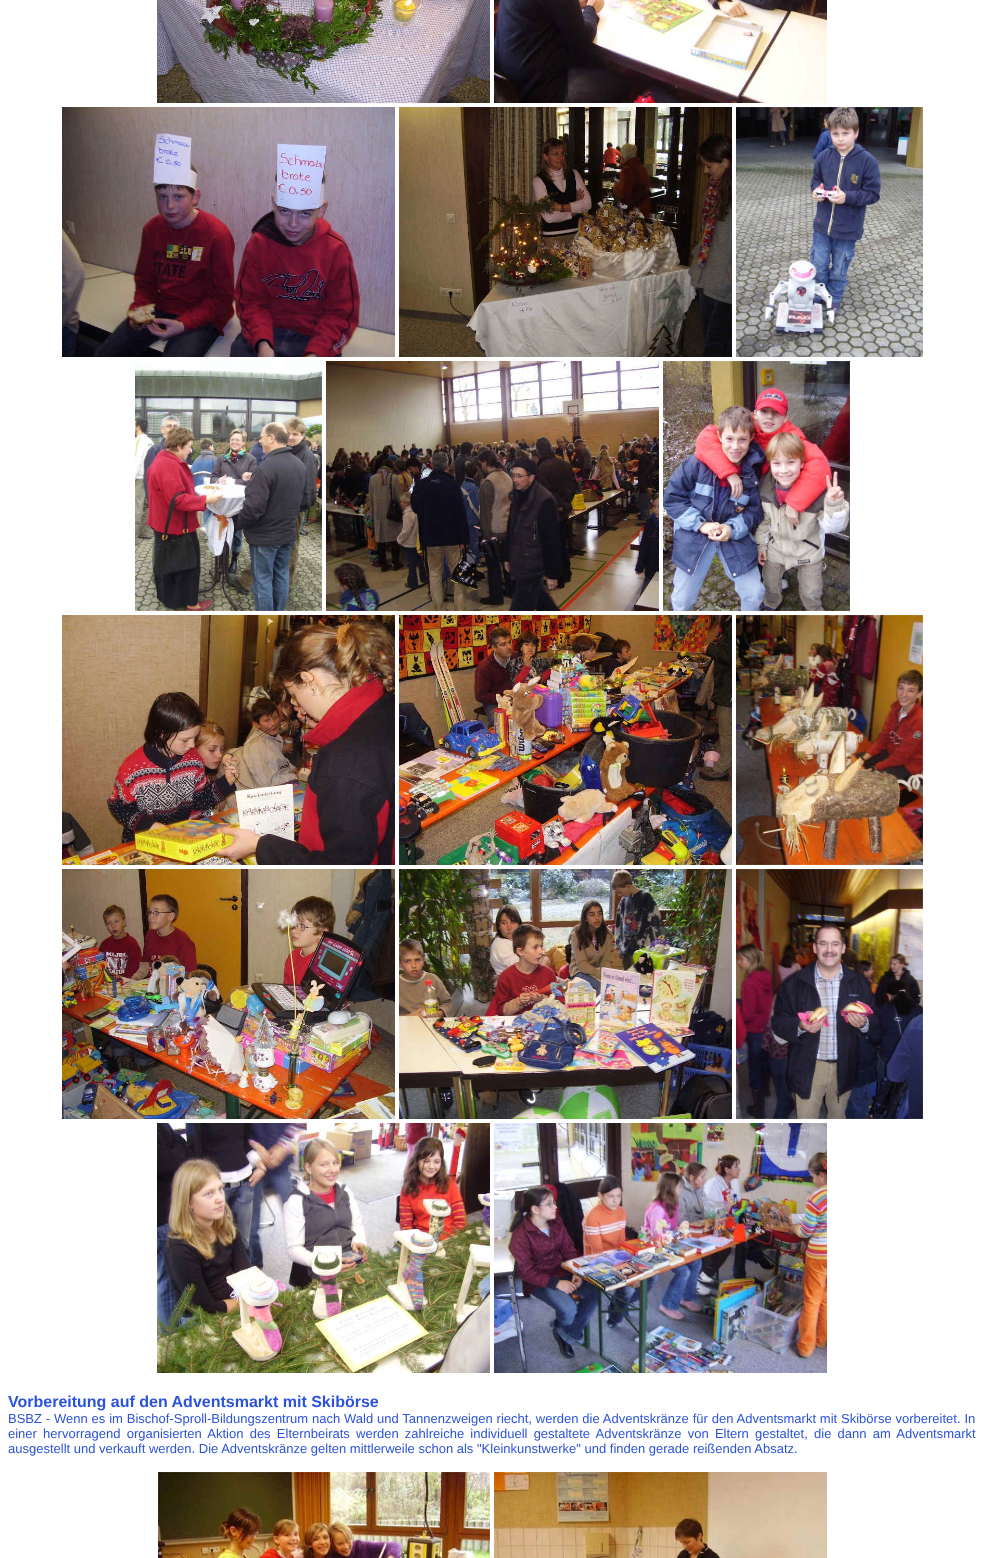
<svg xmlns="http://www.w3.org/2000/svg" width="984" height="1558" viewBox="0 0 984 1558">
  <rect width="100%" height="100%" fill="#ffffff"/>
  <image x="157" y="0" width="333" height="103" href="img1.png"/>
  <image x="494" y="0" width="333" height="103" href="img2.png"/>
  <image x="62" y="107" width="333" height="250" href="img3.png"/>
  <image x="399" y="107" width="333" height="250" href="img4.png"/>
  <image x="736" y="107" width="187" height="250" href="img5.png"/>
  <image x="135" y="361" width="187" height="250" href="img6.png"/>
  <image x="326" y="361" width="333" height="250" href="img7.png"/>
  <image x="663" y="361" width="187" height="250" href="img8.png"/>
  <image x="62" y="615" width="333" height="250" href="img9.png"/>
  <image x="399" y="615" width="333" height="250" href="img10.png"/>
  <image x="736" y="615" width="187" height="250" href="img11.png"/>
  <image x="62" y="869" width="333" height="250" href="img12.png"/>
  <image x="399" y="869" width="333" height="250" href="img13.png"/>
  <image x="736" y="869" width="187" height="250" href="img14.png"/>
  <image x="157" y="1123" width="333" height="250" href="img15.png"/>
  <image x="494" y="1123" width="333" height="250" href="img16.png"/>
  <text x="8" y="1407" font-family="Liberation Sans" font-size="16" font-weight="bold" fill="#2c53db">Vorbereitung auf den Adventsmarkt mit Skibörse</text>
  <text x="8" y="1423" word-spacing="0.25" font-family="Liberation Sans" font-size="13" fill="#2c53db">BSBZ - Wenn es im Bischof-Sproll-Bildungszentrum nach Wald und Tannenzweigen riecht, werden die Adventskränze für den Adventsmarkt mit Skibörse vorbereitet. In</text>
  <text x="8" y="1438" word-spacing="2.6" font-family="Liberation Sans" font-size="13" fill="#2c53db">einer hervorragend organisierten Aktion des Elternbeirats werden zahlreiche individuell gestaltete Adventskränze von Eltern gestaltet, die dann am Adventsmarkt</text>
  <text x="8" y="1453" font-family="Liberation Sans" font-size="13" fill="#2c53db">ausgestellt und verkauft werden. Die Adventskränze gelten mittlerweile schon als "Kleinkunstwerke" und finden gerade reißenden Absatz.</text>
  <image x="158" y="1472" width="332" height="86" href="img17.png"/>
  <image x="494" y="1472" width="333" height="86" href="img18.png"/>
</svg>
